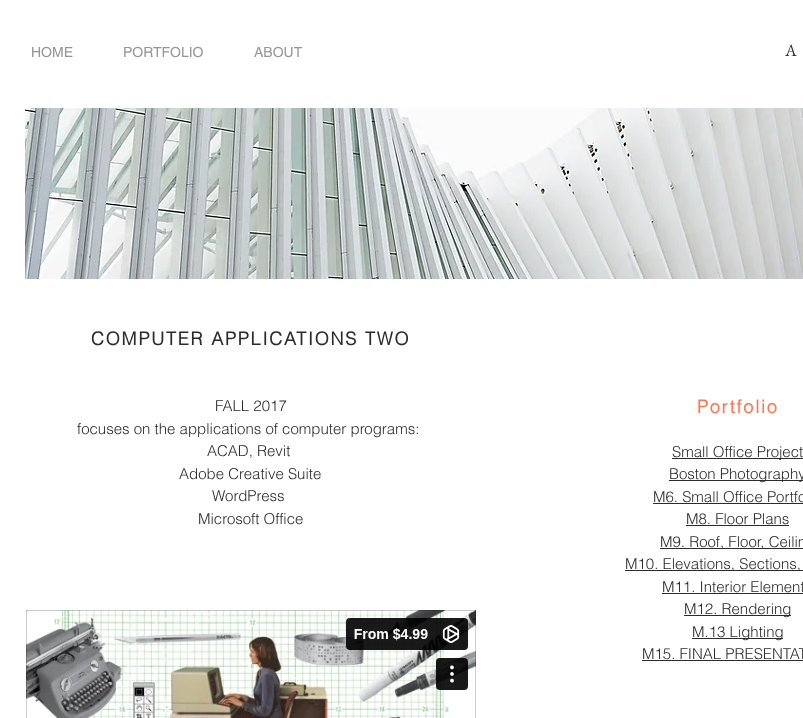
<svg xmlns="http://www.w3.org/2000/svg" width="803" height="718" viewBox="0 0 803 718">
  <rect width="100%" height="100%" fill="#ffffff"/>
  <text x="31" y="57" font-family="helvetica" font-size="14" fill="#979595">HOME</text>
  <text x="123" y="57" font-family="helvetica" font-size="14" fill="#979595">PORTFOLIO</text>
  <text x="254" y="57" font-family="helvetica" font-size="14" fill="#979595">ABOUT</text>
  <text x="785" y="56" font-family="EB Garamond" font-size="17" letter-spacing="3" fill="#2b2b2b">A</text>
  <image x="25" y="108" width="778" height="171" href="img1.png"/>
  <text x="91" y="345" font-family="helvetica" font-size="18" font-weight="bold" letter-spacing="1.8" fill="#2b2b2b">COMPUTER APPLICATIONS TWO</text>
  <text x="215" y="411" font-family="helvetica" font-size="15" font-weight="300" fill="#2b2b2b">FALL 2017</text>
  <text x="77" y="434" font-family="helvetica" font-size="15" font-weight="300" fill="#2b2b2b">focuses on the applications of computer programs:</text>
  <text x="207" y="456" font-family="helvetica" font-size="15" font-weight="300" fill="#2b2b2b">ACAD, Revit</text>
  <text x="179" y="479" font-family="helvetica" font-size="15" font-weight="300" fill="#2b2b2b">Adobe Creative Suite</text>
  <text x="212" y="501" font-family="helvetica" font-size="15" font-weight="300" fill="#2b2b2b">WordPress</text>
  <text x="198" y="524" font-family="helvetica" font-size="15" font-weight="300" fill="#2b2b2b">Microsoft Office</text>
  <text x="697" y="413" font-family="helvetica" font-size="18" font-weight="bold" letter-spacing="1.8" fill="#fc7756">Portfolio</text>
  <rect x="672" y="458" width="131" height="1" fill="#2b2b2b"/>
  <text x="672" y="457" font-family="helvetica" font-size="15" font-weight="300" fill="#2b2b2b">Small Office Project</text>
  <rect x="669" y="480" width="134" height="1" fill="#2b2b2b"/>
  <text x="669" y="479" font-family="helvetica" font-size="15" font-weight="300" fill="#2b2b2b">Boston Photography</text>
  <text x="653" y="502" font-family="helvetica" font-size="15" font-weight="300" fill="#2b2b2b">M6. Small Office Portfo</text>
  <rect x="653" y="503" width="150" height="1" fill="#2b2b2b"/>
  <text x="686" y="524" font-family="helvetica" font-size="15" font-weight="300" fill="#2b2b2b">M8. Floor Plans</text>
  <rect x="686" y="525" width="103" height="1" fill="#2b2b2b"/>
  <rect x="660" y="548" width="143" height="1" fill="#2b2b2b"/>
  <text x="660" y="547" font-family="helvetica" font-size="15" font-weight="300" fill="#2b2b2b">M9. Roof, Floor, Ceilin</text>
  <rect x="625" y="570" width="178" height="1" fill="#2b2b2b"/>
  <text x="625" y="569" font-family="helvetica" font-size="15" font-weight="300" fill="#2b2b2b">M10. Elevations, Sections,</text>
  <text x="662" y="592" font-family="helvetica" font-size="15" font-weight="300" fill="#2b2b2b">M11. Interior Element</text>
  <rect x="662" y="593" width="141" height="1" fill="#2b2b2b"/>
  <rect x="684" y="615" width="107" height="1" fill="#2b2b2b"/>
  <text x="684" y="614" font-family="helvetica" font-size="15" font-weight="300" fill="#2b2b2b">M12. Rendering</text>
  <rect x="692" y="638" width="91" height="1" fill="#2b2b2b"/>
  <text x="692" y="637" font-family="helvetica" font-size="15" font-weight="300" fill="#2b2b2b">M.13 Lighting</text>
  <text x="642" y="659" font-family="helvetica" font-size="15" font-weight="300" fill="#2b2b2b">M15. FINAL PRESENTAT</text>
  <rect x="642" y="660" width="161" height="1" fill="#2b2b2b"/>
  <image x="26" y="610" width="450" height="108" href="img2.png"/>
</svg>
